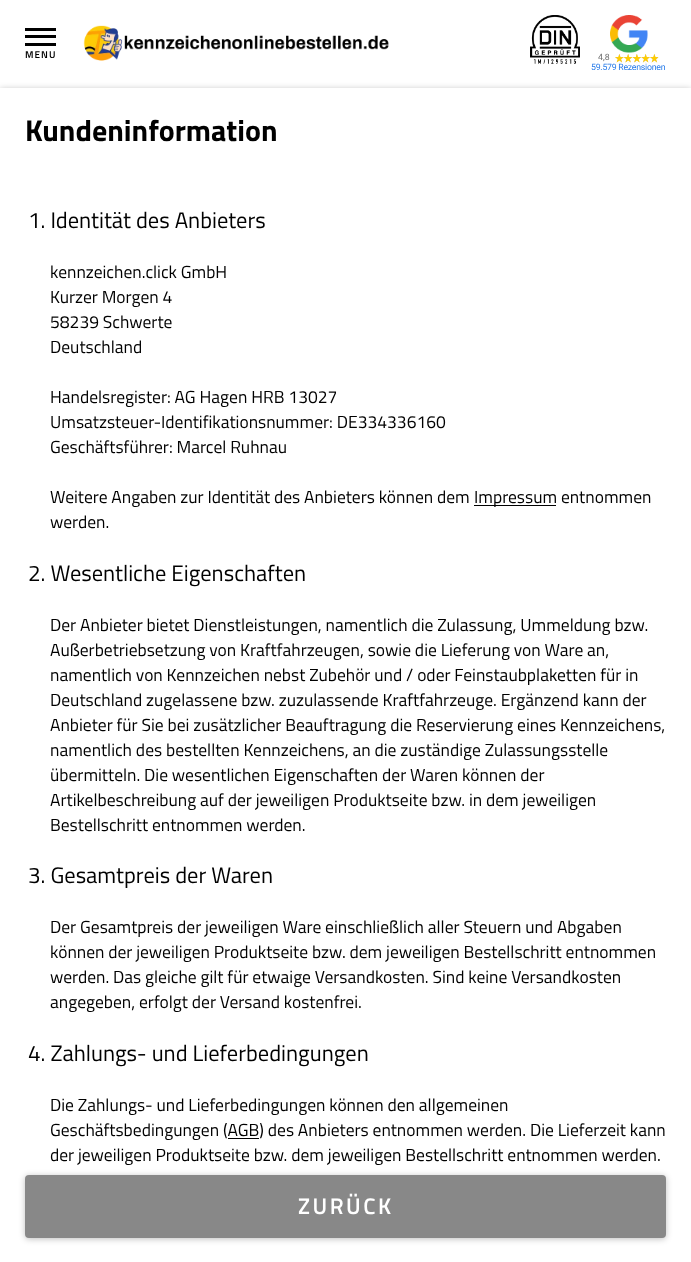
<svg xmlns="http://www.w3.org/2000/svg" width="691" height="1262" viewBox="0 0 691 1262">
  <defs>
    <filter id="blur1" x="-50%" y="-200%" width="200%" height="500%"><feGaussianBlur stdDeviation="3"/></filter>
  </defs>
  <rect width="100%" height="100%" fill="#ffffff"/>
  <rect x="25" y="28" width="31" height="3" fill="#000000"/>
  <rect x="25" y="35" width="31" height="3" fill="#000000"/>
  <rect x="25" y="43" width="31" height="3" fill="#000000"/>
  <text x="25" y="58" font-family="Titillium Web" font-size="10" font-weight="600" letter-spacing="1" fill="#000000">MENU</text>
  <image x="83" y="25" width="306" height="36" href="img1.png"/>
  <image x="530" y="15" width="50" height="49" href="img2.png"/>
  <image x="610" y="15" width="38" height="38" href="img3.png"/>
  <text x="598" y="60" font-family="Roboto" font-size="8.75" fill="#6d6d6d">4,8</text>
  <image x="615" y="54" width="44" height="9" href="img4.png"/>
  <image x="615" y="54" width="43" height="9" href="img5.png"/>
  <text x="591" y="70" font-family="Roboto" font-size="8.75" letter-spacing="-0.25" fill="#277be9">59.579 Rezensionen</text>
  <rect x="0" y="89" width="691" height="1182" fill="#000000" fill-opacity="0.25" filter="url(#blur1)"/>
  <rect x="0" y="88" width="691" height="1174" fill="#ffffff"/>
  <text x="25" y="141" font-family="Titillium Web" font-size="30" font-weight="bold" fill="#000000">Kundeninformation</text>
  <text x="28" y="228" font-family="Titillium Web" font-size="22.5" fill="#000000">1. Identität des Anbieters</text>
  <text x="50" y="278" font-family="Titillium Web" font-size="17.5" fill="#000000">kennzeichen.click GmbH</text>
  <text x="50" y="303" font-family="Titillium Web" font-size="17.5" fill="#000000">Kurzer Morgen 4</text>
  <text x="50" y="328" font-family="Titillium Web" font-size="17.5" fill="#000000">58239 Schwerte</text>
  <text x="50" y="353" font-family="Titillium Web" font-size="17.5" fill="#000000">Deutschland</text>
  <text x="50" y="403" font-family="Titillium Web" font-size="17.5" fill="#000000">Handelsregister: AG Hagen HRB 13027</text>
  <text x="50" y="428" font-family="Titillium Web" font-size="17.5" fill="#000000">Umsatzsteuer-Identifikationsnummer: DE334336160</text>
  <text x="50" y="453" font-family="Titillium Web" font-size="17.5" fill="#000000">Geschäftsführer: Marcel Ruhnau</text>
  <text x="50" y="503" font-family="Titillium Web" font-size="17.5" fill="#000000">Weitere Angaben zur Identität des Anbieters können dem</text>
  <rect x="474" y="505" width="82" height="1" fill="#000000"/>
  <text x="474" y="503" font-family="Titillium Web" font-size="17.5" fill="#000000">Impressum entnommen</text>
  <text x="50" y="528" font-family="Titillium Web" font-size="17.5" fill="#000000">werden.</text>
  <text x="28" y="581" font-family="Titillium Web" font-size="22.5" fill="#000000">2. Wesentliche Eigenschaften</text>
  <text x="50" y="631" font-family="Titillium Web" font-size="17.5" fill="#000000">Der Anbieter bietet Dienstleistungen, namentlich die Zulassung, Ummeldung bzw.</text>
  <text x="50" y="656" font-family="Titillium Web" font-size="17.5" fill="#000000">Außerbetriebsetzung von Kraftfahrzeugen, sowie die Lieferung von Ware an,</text>
  <text x="50" y="681" font-family="Titillium Web" font-size="17.5" fill="#000000">namentlich von Kennzeichen nebst Zubehör und / oder Feinstaubplaketten für in</text>
  <text x="50" y="706" font-family="Titillium Web" font-size="17.5" fill="#000000">Deutschland zugelassene bzw. zuzulassende Kraftfahrzeuge. Ergänzend kann der</text>
  <text x="50" y="731" font-family="Titillium Web" font-size="17.5" fill="#000000">Anbieter für Sie bei zusätzlicher Beauftragung die Reservierung eines Kennzeichens,</text>
  <text x="50" y="756" font-family="Titillium Web" font-size="17.5" fill="#000000">namentlich des bestellten Kennzeichens, an die zuständige Zulassungsstelle</text>
  <text x="50" y="781" font-family="Titillium Web" font-size="17.5" fill="#000000">übermitteln. Die wesentlichen Eigenschaften der Waren können der</text>
  <text x="50" y="806" font-family="Titillium Web" font-size="17.5" fill="#000000">Artikelbeschreibung auf der jeweiligen Produktseite bzw. in dem jeweiligen</text>
  <text x="50" y="831" font-family="Titillium Web" font-size="17.5" fill="#000000">Bestellschritt entnommen werden.</text>
  <text x="28" y="883" font-family="Titillium Web" font-size="22.5" fill="#000000">3. Gesamtpreis der Waren</text>
  <text x="50" y="933" font-family="Titillium Web" font-size="17.5" fill="#000000">Der Gesamtpreis der jeweiligen Ware einschließlich aller Steuern und Abgaben</text>
  <text x="50" y="958" font-family="Titillium Web" font-size="17.5" fill="#000000">können der jeweiligen Produktseite bzw. dem jeweiligen Bestellschritt entnommen</text>
  <text x="50" y="983" font-family="Titillium Web" font-size="17.5" fill="#000000">werden. Das gleiche gilt für etwaige Versandkosten. Sind keine Versandkosten</text>
  <text x="50" y="1008" font-family="Titillium Web" font-size="17.5" fill="#000000">angegeben, erfolgt der Versand kostenfrei.</text>
  <text x="28" y="1061" font-family="Titillium Web" font-size="22.5" fill="#000000">4. Zahlungs- und Lieferbedingungen</text>
  <text x="50" y="1111" font-family="Titillium Web" font-size="17.5" fill="#000000">Die Zahlungs- und Lieferbedingungen können den allgemeinen</text>
  <text x="50" y="1136" font-family="Titillium Web" font-size="17.5" fill="#000000">Geschäftsbedingungen (AGB) des Anbieters entnommen werden. Die Lieferzeit kann</text>
  <rect x="228" y="1138" width="31" height="1" fill="#000000"/>
  <text x="50" y="1161" font-family="Titillium Web" font-size="17.5" fill="#000000">der jeweiligen Produktseite bzw. dem jeweiligen Bestellschritt entnommen werden.</text>
  <rect x="25" y="1176" width="641" height="63" rx="4" fill="#000000" fill-opacity="0.25" filter="url(#blur1)"/>
  <rect x="25" y="1175" width="641" height="63" rx="4" fill="#888888"/>
  <text x="298" y="1214" font-family="Titillium Web" font-size="22.5" font-weight="600" letter-spacing="2.5" fill="#ffffff">ZURÜCK</text>
</svg>
